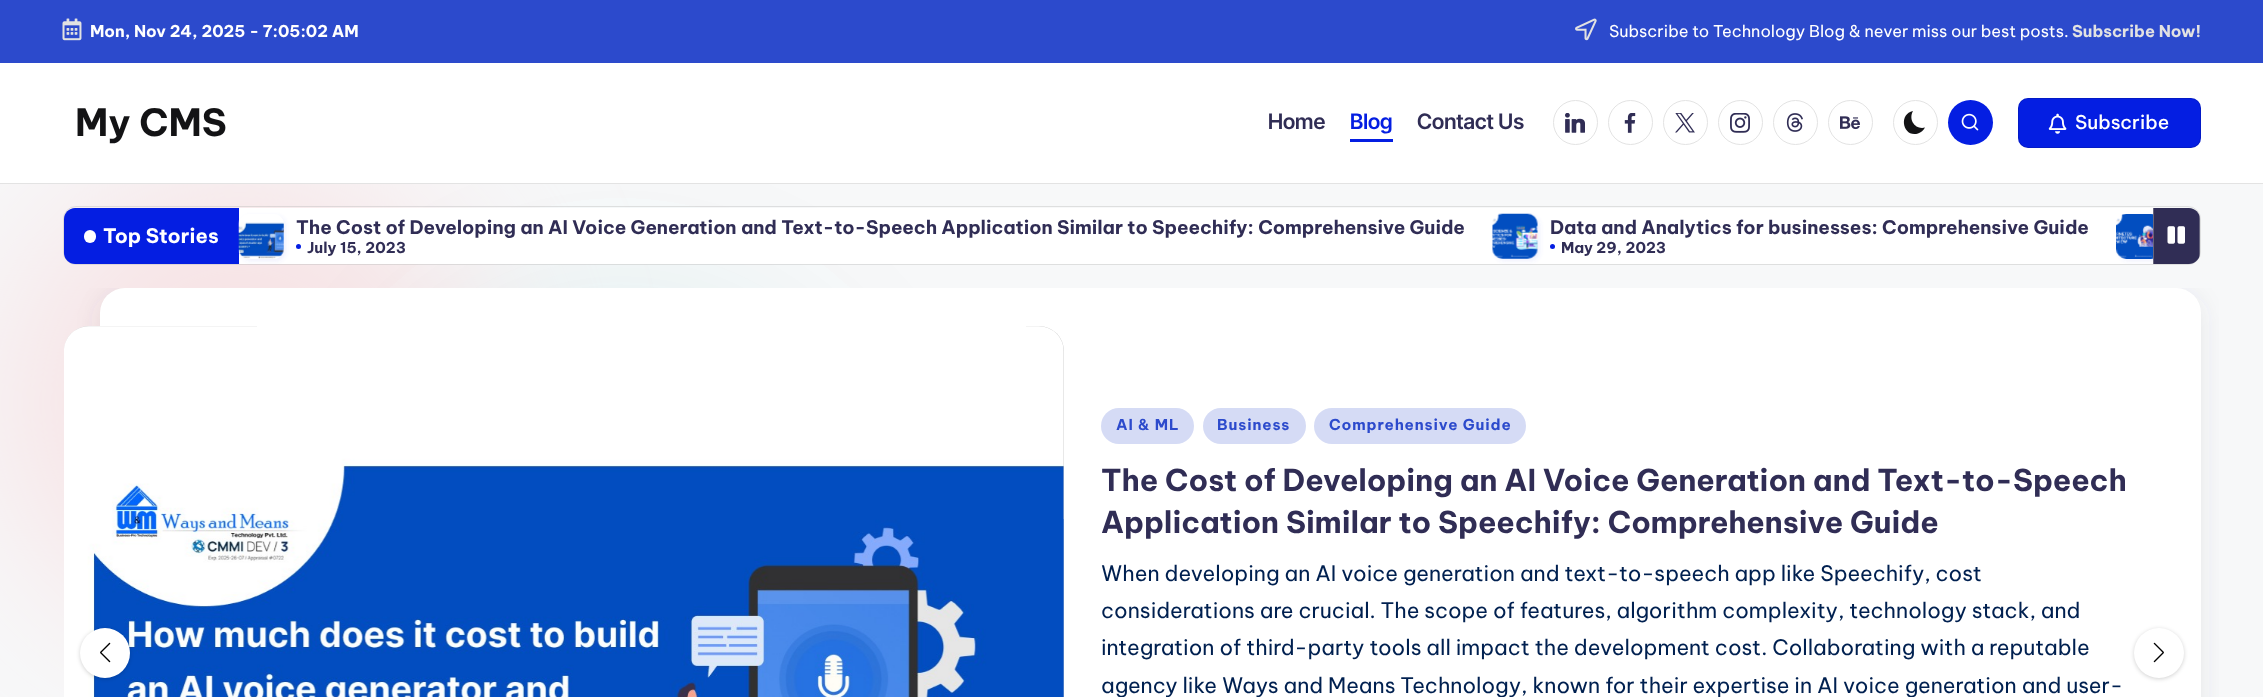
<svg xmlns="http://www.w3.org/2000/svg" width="2263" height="697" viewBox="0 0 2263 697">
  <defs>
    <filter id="blur1" x="-50%" y="-200%" width="200%" height="500%"><feGaussianBlur stdDeviation="80"/></filter>
    <clipPath id="clip1"><path d="M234 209H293V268H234ZM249 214H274C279.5 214 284 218.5 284 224V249C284 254.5 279.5 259 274 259H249C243.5 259 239 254.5 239 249V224C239 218.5 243.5 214 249 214Z" clip-rule="evenodd"/></clipPath>
    <filter id="blur2" x="-50%" y="-200%" width="200%" height="500%"><feGaussianBlur stdDeviation="2"/></filter>
    <clipPath id="clip2"><rect x="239" y="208" width="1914" height="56"/></clipPath>
    <clipPath id="clip3"><rect x="64" y="208" width="2136" height="56" rx="11"/></clipPath>
    <clipPath id="clip4"><rect x="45" y="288" width="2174" height="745"/></clipPath>
    <filter id="blur3" x="-50%" y="-200%" width="200%" height="500%"><feGaussianBlur stdDeviation="12.5"/></filter>
  </defs>
  <rect width="100%" height="100%" fill="#f7f8f9"/>
  <rect x="0" y="163" width="480" height="480" rx="240" fill="#f7e3e5" filter="url(#blur1)"/>
  <rect x="380" y="300" width="480" height="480" rx="240" fill="#04868b" fill-opacity="0.1" filter="url(#blur1)"/>
  <rect x="0" y="0" width="2263" height="63" fill="#2c4acc"/>
  <image x="62" y="18" width="20" height="23" href="img1.png"/>
  <text x="90" y="37" font-family="Be Vietnam Pro" font-size="16.25" font-weight="bold" fill="#ffffff">Mon, Nov 24, 2025 - 7:05:02 AM</text>
  <image x="1575" y="18" width="22" height="23" href="img2.png"/>
  <text x="1609" y="37" font-family="Be Vietnam Pro" font-size="16.25" fill="#ffffff">Subscribe to Technology Blog &amp; never miss our best posts.</text>
  <text x="2072" y="37" font-family="Be Vietnam Pro" font-size="16.25" font-weight="bold" fill="#e2e2e2">Subscribe Now!</text>
  <rect x="0" y="63" width="2263" height="120" fill="#ffffff"/>
  <rect x="0" y="183" width="2263" height="1" fill="#e3e3e3"/>
  <text x="75" y="136" font-family="Be Vietnam Pro" font-size="37.5" font-weight="bold" fill="#131315">My CMS</text>
  <text x="1268" y="129" font-family="Inter Tight" font-size="21.25" font-weight="600" fill="#302d55">Home</text>
  <text x="1350" y="129" font-family="Inter Tight" font-size="21.25" font-weight="600" fill="#041ee2">Blog</text>
  <rect x="1350" y="139" width="43" height="3" fill="#041ee2"/>
  <text x="1417" y="129" font-family="Inter Tight" font-size="21.25" font-weight="600" fill="#302d55">Contact Us</text>
  <circle cx="1575.5" cy="122.5" r="22" fill="none" stroke="#e3e3e3"/>
  <image x="1565" y="113" width="20" height="20" href="img3.png"/>
  <circle cx="1630.5" cy="122.5" r="22" fill="none" stroke="#e3e3e3"/>
  <image x="1624" y="113" width="12" height="20" href="img4.png"/>
  <circle cx="1685.5" cy="122.5" r="22" fill="none" stroke="#e3e3e3"/>
  <image x="1675" y="113" width="20" height="20" href="img5.png"/>
  <circle cx="1740.5" cy="122.5" r="22" fill="none" stroke="#e3e3e3"/>
  <image x="1730" y="113" width="20" height="20" href="img6.png"/>
  <circle cx="1795.5" cy="122.5" r="22" fill="none" stroke="#e3e3e3"/>
  <image x="1786" y="113" width="17" height="19" href="img7.png"/>
  <circle cx="1850.5" cy="122.5" r="22" fill="none" stroke="#e3e3e3"/>
  <image x="1840" y="116" width="20" height="14" href="img8.png"/>
  <circle cx="1915.5" cy="122.5" r="22" fill="none" stroke="#e3e3e3"/>
  <path d="M1925 127.5C1915.5 130 1908 120 1913 111C1898 114 1903 138 1918 133.5C1921 132.5 1923.5 130.5 1925 127.5Z" fill="#131315"/>
  <circle cx="1970.5" cy="122.5" r="22.5" fill="#041ee2"/>
  <image x="1961" y="113" width="18" height="18" href="img9.png"/>
  <rect x="2018" y="98" width="183" height="50" rx="10" fill="#041ee2"/>
  <rect x="2018.5" y="98.5" width="182" height="49" rx="9.5" fill="none" stroke="#000000" stroke-opacity="0.12"/>
  <image x="2048" y="113" width="19" height="21" href="img10.png"/>
  <text x="2075" y="129" font-family="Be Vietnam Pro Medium" font-size="19" font-weight="500" fill="#ffffff">Subscribe</text>
  <rect x="63.5" y="206.5" width="2137" height="58" rx="12.5" fill="none" stroke="#b9b9b9" stroke-opacity="0.4"/>
  <path d="M75 208H239V264H75C69 264 64 259 64 253V219C64 213 69 208 75 208Z" fill="#041ee2"/>
  <rect x="84" y="230" width="12" height="13" rx="6" fill="#ffffff"/>
  <text x="103" y="243" font-family="Be Vietnam Pro" font-size="20" font-weight="bold" fill="#ffffff">Top Stories</text>
  <rect x="239" y="208" width="1914" height="56" fill="#ffffff"/>
  <g clip-path="url(#clip1)">
    <rect x="241" y="216" width="45" height="45" rx="10" fill="#5d70ea" fill-opacity="0.1" filter="url(#blur2)"/>
  </g>
  <image x="238" y="220" width="46" height="39" href="img11.png"/>
  <text x="296" y="234" font-family="Be Vietnam Pro" font-size="18.75" font-weight="bold" fill="#302d55">The Cost of Developing an AI Voice Generation and Text-to-Speech Application Similar to Speechify: Comprehensive Guide</text>
  <circle cx="298.5" cy="246.5" r="2.5" fill="#041ee2"/>
  <text x="307" y="253" font-family="Be Vietnam Pro" font-size="15" font-weight="bold" fill="#302d55">July 15, 2023</text>
  <rect x="1495" y="216" width="45" height="45" rx="10" fill="#5d70ea" fill-opacity="0.1" filter="url(#blur2)"/>
  <image x="1492" y="213" width="46" height="46" href="img12.png"/>
  <text x="1550" y="234" font-family="Be Vietnam Pro" font-size="18.75" font-weight="bold" fill="#302d55">Data and Analytics for businesses: Comprehensive Guide</text>
  <circle cx="1552.5" cy="246.5" r="2.5" fill="#041ee2"/>
  <text x="1561" y="253" font-family="Be Vietnam Pro" font-size="15" font-weight="bold" fill="#302d55">May 29, 2023</text>
  <path d="M2153 208H2189C2195 208 2200 213 2200 219V253C2200 259 2195 264 2189 264H2153Z" fill="#302d55"/>
  <rect x="2153" y="208" width="1" height="56" fill="#67657d"/>
  <image x="2167" y="226" width="18" height="18" href="img14.png"/>
  <g clip-path="url(#clip2)">
    <rect x="2119" y="216" width="45" height="45" rx="10" fill="#5d70ea" fill-opacity="0.1" filter="url(#blur2)"/>
  </g>
  <image x="2116" y="214" width="37" height="45" href="img13.png"/>
  <g clip-path="url(#clip3)">
    <rect x="2199" y="208" width="1" height="56" fill="#b9b9b9" fill-opacity="0.4"/>
  </g>
  <g clip-path="url(#clip4)">
    <rect x="100" y="294" width="2101" height="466" rx="25" fill="#454360" fill-opacity="0.1" filter="url(#blur3)"/>
  </g>
  <rect x="100" y="288" width="2101" height="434" rx="25" fill="#ffffff"/>
  <rect x="64" y="326" width="1000" height="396" rx="25" fill="#d1d1d1"/>
  <image x="64" y="326" width="1000" height="371" href="img16.png"/>
  <rect x="80" y="629" width="50" height="50" rx="25" fill="#000000" fill-opacity="0.18" filter="url(#blur2)"/>
  <circle cx="105" cy="653" r="25" fill="#ffffff"/>
  <image x="100" y="642" width="11" height="21" href="img15.png"/>
  <rect x="1101" y="408" width="93" height="36" rx="18" fill="#d5dbf5"/>
  <text x="1116" y="430" font-family="Be Vietnam Pro" font-size="15" font-weight="bold" letter-spacing="0.9" fill="#2c4acc">AI &amp; ML</text>
  <rect x="1203" y="408" width="103" height="36" rx="18" fill="#d5dbf5"/>
  <text x="1217" y="430" font-family="Be Vietnam Pro" font-size="15" font-weight="bold" letter-spacing="0.9" fill="#2c4acc">Business</text>
  <rect x="1314" y="408" width="212" height="36" rx="18" fill="#d5dbf5"/>
  <text x="1329" y="430" font-family="Be Vietnam Pro" font-size="15" font-weight="bold" letter-spacing="0.9" fill="#2c4acc">Comprehensive Guide</text>
  <text x="1101" y="491" font-family="Be Vietnam Pro" font-size="30" font-weight="bold" fill="#302d55">The Cost of Developing an AI Voice Generation and Text-to-Speech</text>
  <text x="1101" y="533" font-family="Be Vietnam Pro" font-size="30" font-weight="bold" fill="#302d55">Application Similar to Speechify: Comprehensive Guide</text>
  <text x="1101" y="581" font-family="Be Vietnam Pro" font-size="21.25" fill="#002050">When developing an AI voice generation and text-to-speech app like Speechify, cost</text>
  <text x="1101" y="618" font-family="Be Vietnam Pro" font-size="21.25" fill="#002050">considerations are crucial. The scope of features, algorithm complexity, technology stack, and</text>
  <text x="1101" y="655" font-family="Be Vietnam Pro" font-size="21.25" fill="#002050">integration of third-party tools all impact the development cost. Collaborating with a reputable</text>
  <text x="1101" y="693" font-family="Be Vietnam Pro" font-size="21.25" fill="#002050">agency like Ways and Means Technology, known for their expertise in AI voice generation and user-</text>
  <rect x="2134" y="629" width="50" height="50" rx="25" fill="#000000" fill-opacity="0.18" filter="url(#blur2)"/>
  <circle cx="2159" cy="653" r="25" fill="#ffffff"/>
  <image x="2153" y="642" width="11" height="21" href="img17.png"/>
</svg>
